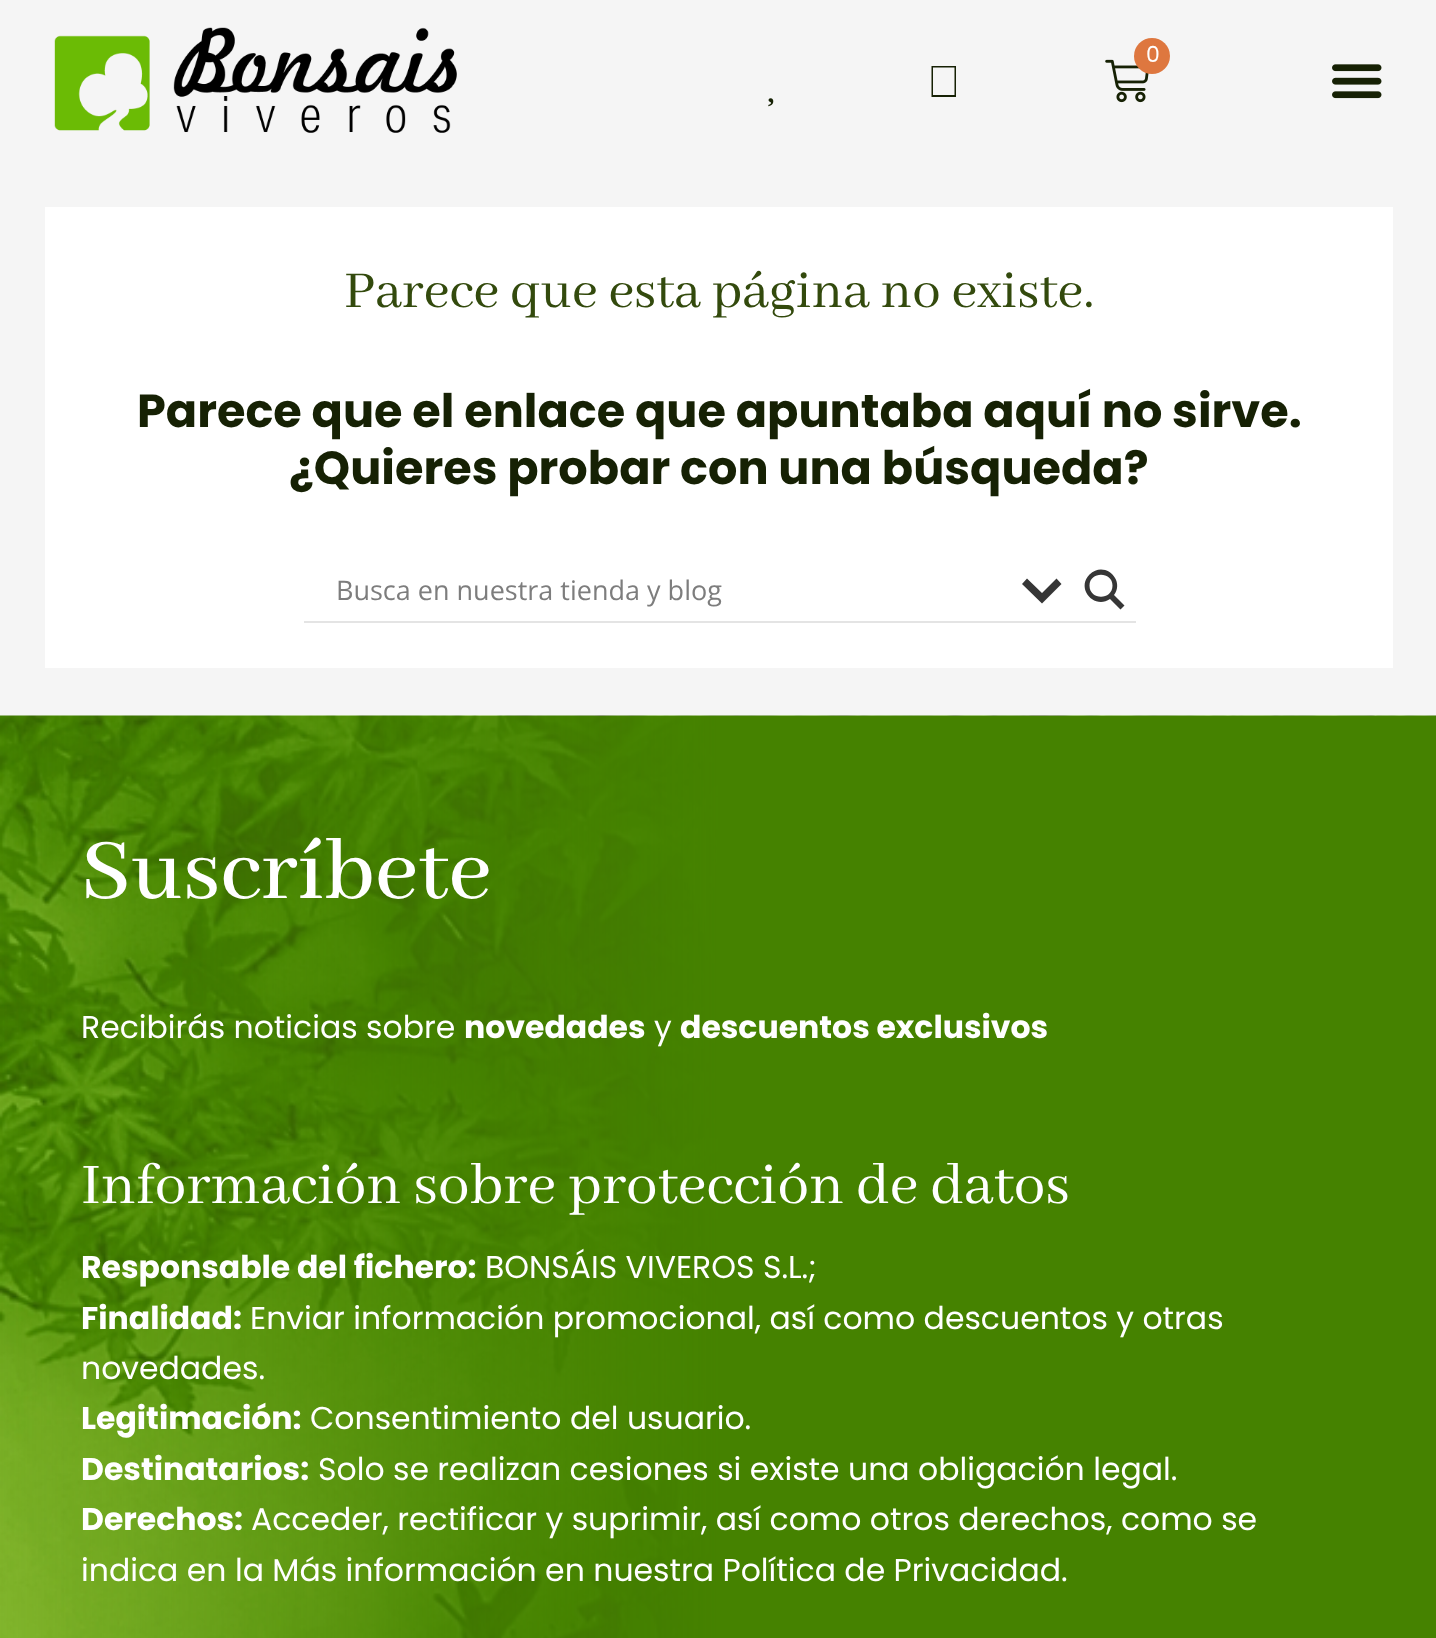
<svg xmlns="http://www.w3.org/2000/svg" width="1436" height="1638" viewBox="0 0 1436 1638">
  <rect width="100%" height="100%" fill="#f5f5f5"/>
  <image x="54" y="27" width="403" height="106" href="img1.png"/>
  <image x="1105" y="59" width="44" height="44" href="img2.png"/>
  <circle cx="1152" cy="56" r="18" fill="#de773f"/>
  <text x="1146" y="62" font-family="Poppins" font-size="22" fill="#ffffff">0</text>
  <path d="M931.5 66H956V97H931.5ZM933 67.5V95H954.5V67.5Z" fill="#162104"/>
  <image x="1332" y="64" width="50" height="35" href="img3.png"/>
  <image x="768" y="98" width="6" height="9" href="img4.png"/>
  <rect x="45" y="207" width="1348" height="461" fill="#ffffff"/>
  <text x="344" y="307" font-family="Abhaya Libre" font-size="56.75" fill="#334a0d">Parece que esta página no existe.</text>
  <text x="137" y="427" font-family="Poppins" font-size="46.2" font-weight="bold" fill="#162104">Parece que el enlace que apuntaba aquí no sirve.</text>
  <text x="289" y="484" font-family="Poppins" font-size="46.2" font-weight="bold" fill="#162104">¿Quieres probar con una búsqueda?</text>
  <rect x="304" y="621" width="832" height="2" fill="#e4e4e4"/>
  <text x="336" y="600" font-family="Open Sans" font-size="27" fill="#7d7d7d">Busca en nuestra tienda y blog</text>
  <path d="M1056.5 578.5L1061.5 584L1042 603.5L1022 584L1027 578.5L1042 593Z" fill="#363636"/>
  <path d="M1124.5 605.5L1114 595C1125.5 579.5 1104 560 1089.5 574.5C1075.5 588.5 1094.5 610 1110 599L1120.5 609.5ZM1089.5 585.5C1089.5 571 1112.5 571 1112.5 585.5C1112.5 600.5 1089.5 600.5 1089.5 585.5Z" fill="#363636"/>
  <image x="0" y="715" width="1436" height="923" href="img5.png"/>
  <text x="81" y="898" font-family="Abhaya Libre Medium" font-size="94.5" font-weight="500" fill="#ffffff">Suscríbete</text>
  <text x="81" y="1038" font-family="Poppins" font-size="31.5" fill="#ffffff">Recibirás noticias sobre</text>
  <text x="464" y="1038" font-family="Poppins" font-size="31.5" font-weight="bold" fill="#ffffff">novedades</text>
  <text x="654" y="1038" font-family="Poppins" font-size="31.5" fill="#ffffff">y</text>
  <text x="680" y="1038" font-family="Poppins" font-size="31.5" font-weight="bold" fill="#ffffff">descuentos exclusivos</text>
  <text x="81" y="1203" font-family="Abhaya Libre" font-size="63" fill="#ffffff">Información sobre protección de datos</text>
  <text x="81" y="1278" font-family="Poppins" font-size="31.5" font-weight="bold" fill="#ffffff">Responsable del fichero:</text>
  <text x="485" y="1278" font-family="Poppins" font-size="31.5" fill="#ffffff">BONSÁIS VIVEROS S.L.;</text>
  <text x="81" y="1329" font-family="Poppins" font-size="31.5" font-weight="bold" fill="#ffffff">Finalidad:</text>
  <text x="250" y="1329" font-family="Poppins" font-size="31.5" fill="#ffffff">Enviar información promocional, así como descuentos y otras</text>
  <text x="81" y="1379" font-family="Poppins" font-size="31.5" fill="#ffffff">novedades.</text>
  <text x="81" y="1429" font-family="Poppins" font-size="31.5" font-weight="bold" fill="#ffffff">Legitimación:</text>
  <text x="310" y="1429" font-family="Poppins" font-size="31.5" fill="#ffffff">Consentimiento del usuario.</text>
  <text x="81" y="1480" font-family="Poppins" font-size="31.5" font-weight="bold" fill="#ffffff">Destinatarios:</text>
  <text x="318" y="1480" font-family="Poppins" font-size="31.5" fill="#ffffff">Solo se realizan cesiones si existe una obligación legal.</text>
  <text x="81" y="1530" font-family="Poppins" font-size="31.5" font-weight="bold" fill="#ffffff">Derechos:</text>
  <text x="251" y="1530" font-family="Poppins" font-size="31.5" fill="#ffffff">Acceder, rectificar y suprimir, así como otros derechos, como se</text>
  <text x="81" y="1581" font-family="Poppins" font-size="31.5" fill="#ffffff">indica en la Más información en nuestra Política de Privacidad.</text>
</svg>
